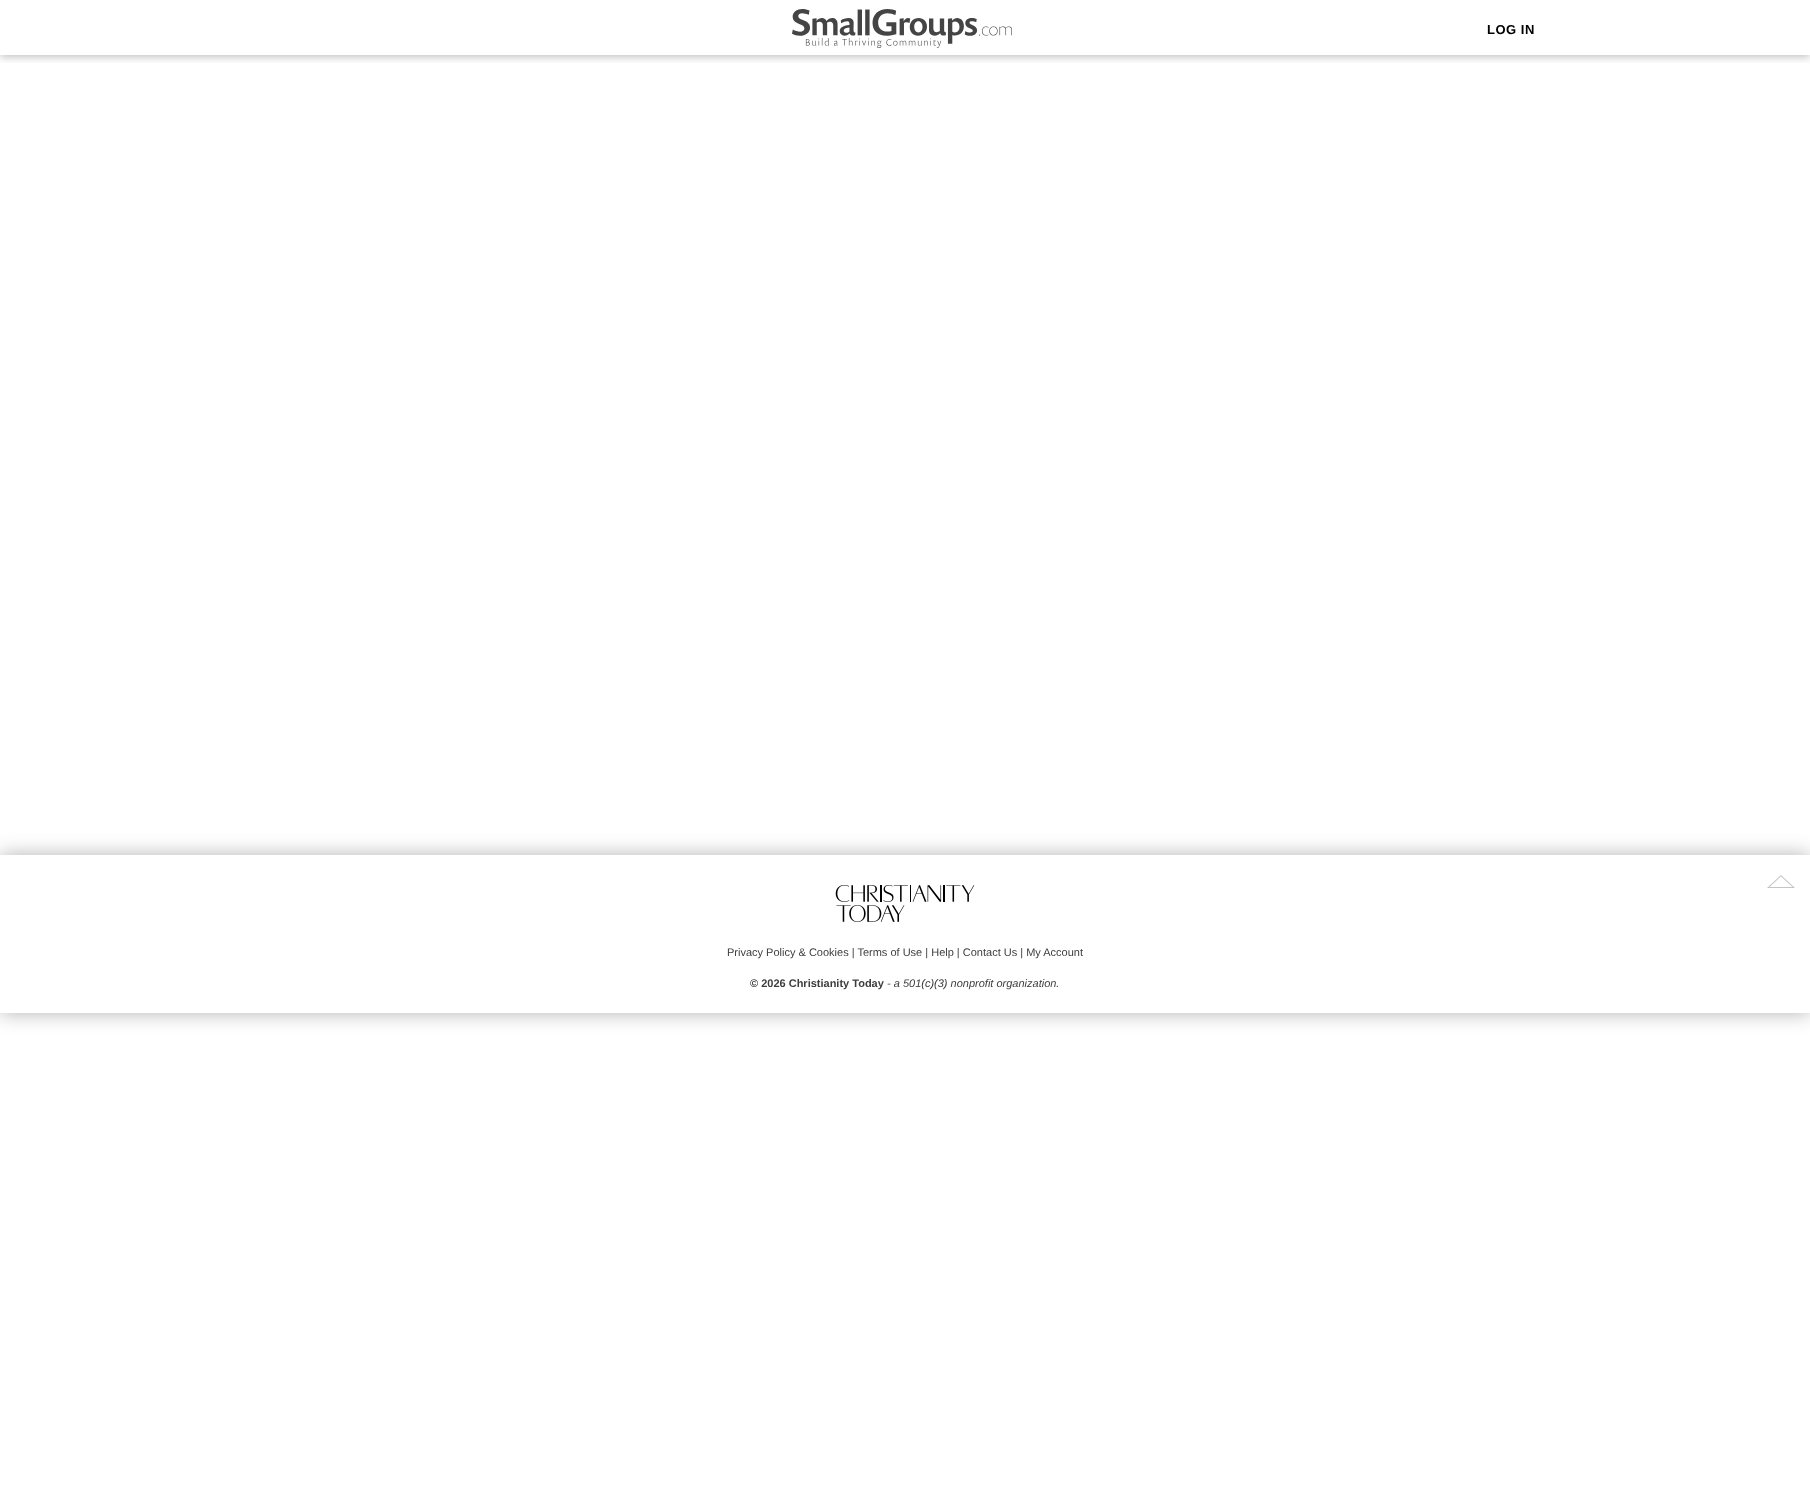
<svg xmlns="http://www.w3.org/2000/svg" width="1810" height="1493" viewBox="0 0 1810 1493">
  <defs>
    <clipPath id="clip1"><rect x="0" y="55" width="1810" height="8"/></clipPath>
    <filter id="blur1" x="-50%" y="-200%" width="200%" height="500%"><feGaussianBlur stdDeviation="4"/></filter>
    <clipPath id="clip2"><path d="M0 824H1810V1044H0ZM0 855H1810V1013H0Z" clip-rule="evenodd"/></clipPath>
    <filter id="blur2" x="-50%" y="-200%" width="200%" height="500%"><feGaussianBlur stdDeviation="10"/></filter>
  </defs>
  <rect width="100%" height="100%" fill="#ffffff"/>
  <g clip-path="url(#clip1)">
    <rect x="0" y="2" width="1810" height="55" fill="#000000" fill-opacity="0.25" filter="url(#blur1)"/>
  </g>
  <image x="792" y="9" width="220" height="39" href="img1.png"/>
  <text x="1487" y="34" font-family="Liberation Sans" font-size="13" font-weight="bold" letter-spacing="0.5" fill="#000000">LOG IN</text>
  <g clip-path="url(#clip2)">
    <rect x="0" y="855" width="1810" height="158" fill="#000000" fill-opacity="0.3" filter="url(#blur2)"/>
  </g>
  <image x="1767" y="875" width="28" height="13" href="img2.png"/>
  <image x="835" y="885" width="140" height="37" href="img3.png"/>
  <text x="727" y="956" font-family="Liberation Sans" font-size="11" fill="#3d3d3d">Privacy Policy &amp; Cookies | Terms of Use | Help | Contact Us | My Account</text>
  <text x="750" y="987" font-family="Liberation Sans" font-size="11" font-weight="bold" fill="#3d3d3d">© 2026 Christianity Today</text>
  <text x="887" y="987" font-family="Liberation Sans" font-size="11" font-style="italic" fill="#3d3d3d">- a 501(c)(3) nonprofit organization.</text>
</svg>
